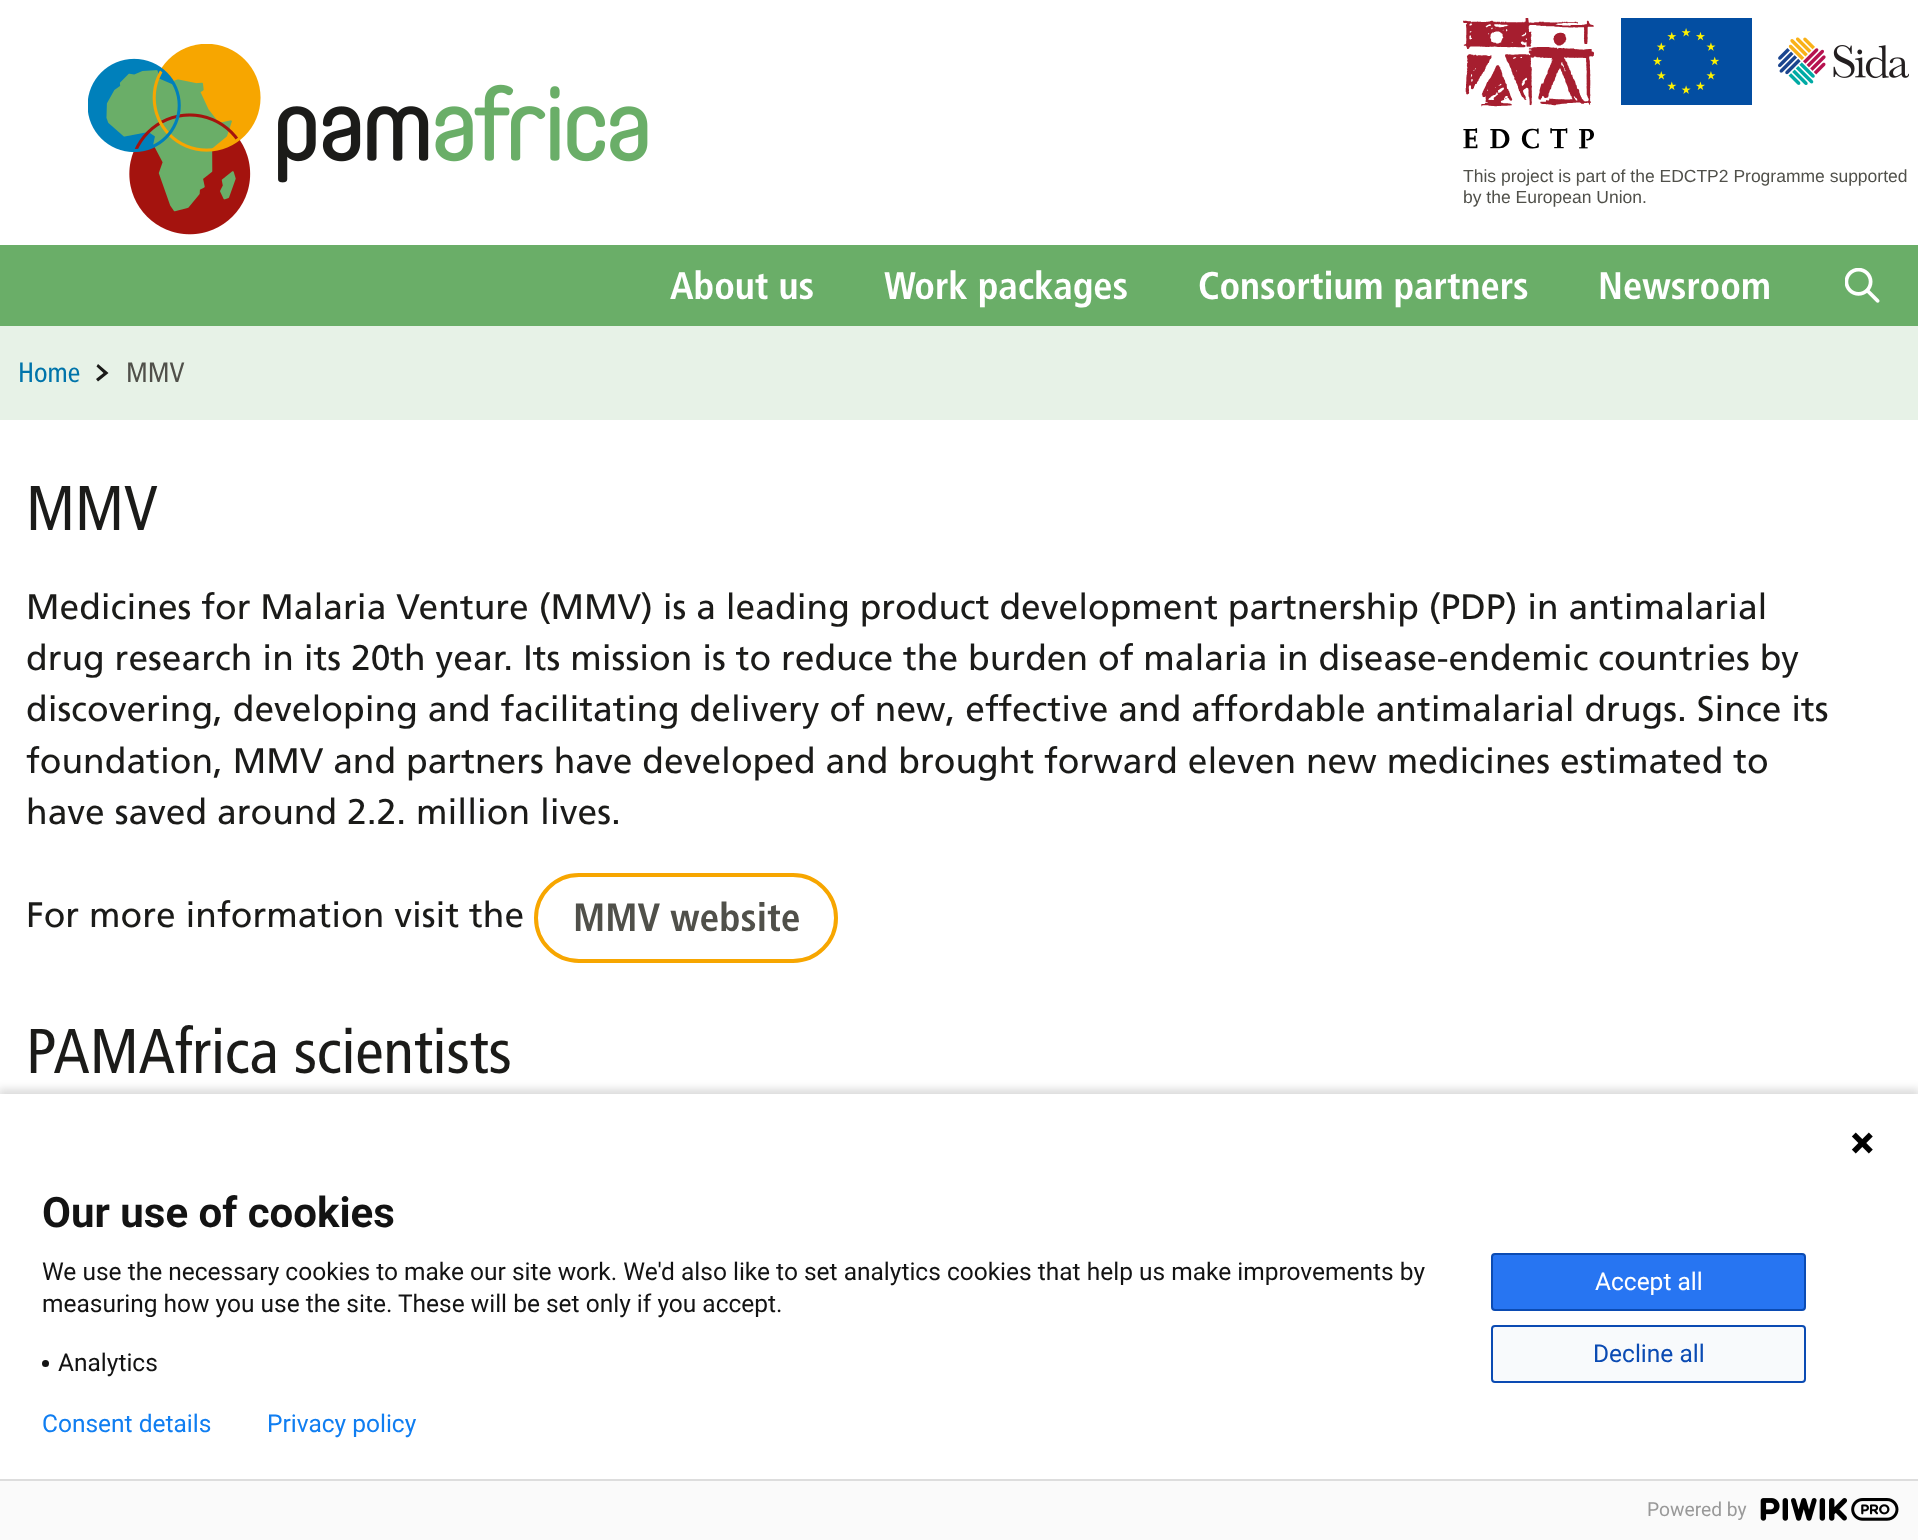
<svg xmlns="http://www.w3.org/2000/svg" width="1918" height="1540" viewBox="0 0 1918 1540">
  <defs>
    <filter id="blur1" x="-50%" y="-200%" width="200%" height="500%"><feGaussianBlur stdDeviation="4.5"/></filter>
  </defs>
  <rect width="100%" height="100%" fill="#ffffff"/>
  <image x="88" y="44" width="560" height="191" href="img1.png"/>
  <image x="1463" y="18" width="131" height="131" href="img2.png"/>
  <image x="1621" y="18" width="131" height="87" href="img3.png"/>
  <image x="1778" y="37" width="131" height="48" href="img4.png"/>
  <text x="1463" y="182" font-family="Liberation Sans" font-size="17.5" fill="#50504a">This project is part of the EDCTP2 Programme supported</text>
  <text x="1463" y="203" font-family="Liberation Sans" font-size="17.5" fill="#50504a">by the European Union.</text>
  <rect x="0" y="245" width="1918" height="81" fill="#6aae68"/>
  <text x="670" y="299" font-family="'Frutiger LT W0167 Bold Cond'" font-size="38.5" font-weight="bold" fill="#ffffff">About us</text>
  <text x="884" y="299" font-family="'Frutiger LT W0167 Bold Cond'" font-size="38.5" font-weight="bold" fill="#ffffff">Work packages</text>
  <text x="1198" y="299" font-family="'Frutiger LT W0167 Bold Cond'" font-size="38.5" font-weight="bold" fill="#ffffff">Consortium partners</text>
  <text x="1598" y="299" font-family="'Frutiger LT W0167 Bold Cond'" font-size="38.5" font-weight="bold" fill="#ffffff">Newsroom</text>
  <image x="1845" y="268" width="35" height="35" href="img5.png"/>
  <rect x="0" y="326" width="1918" height="94" fill="#e7f2e7"/>
  <text x="18" y="382" font-family="'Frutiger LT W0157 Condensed'" font-size="28" fill="#0074aa">Home</text>
  <path d="M108.5 373L98 381.5L96 379L103.5 373L96.5 366.5L98 364Z" fill="#1b1b19" fill-rule="evenodd"/>
  <text x="126" y="382" font-family="'Frutiger LT W0157 Condensed'" font-size="28" fill="#50504a">MMV</text>
  <text x="26" y="530" font-family="'Frutiger LT W0157 Condensed'" font-size="63" fill="#1b1b19">MMV</text>
  <text x="26" y="619" font-family="'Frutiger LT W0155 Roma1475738'" font-size="35.45" fill="#1b1b19">Medicines for Malaria Venture (MMV) is a leading product development partnership (PDP) in antimalarial</text>
  <text x="26" y="670" font-family="'Frutiger LT W0155 Roma1475738'" font-size="35.45" fill="#1b1b19">drug research in its 20th year. Its mission is to reduce the burden of malaria in disease-endemic countries by</text>
  <text x="26" y="721" font-family="'Frutiger LT W0155 Roma1475738'" font-size="35.45" fill="#1b1b19">discovering, developing and facilitating delivery of new, effective and affordable antimalarial drugs. Since its</text>
  <text x="26" y="773" font-family="'Frutiger LT W0155 Roma1475738'" font-size="35.45" fill="#1b1b19">foundation, MMV and partners have developed and brought forward eleven new medicines estimated to</text>
  <text x="26" y="824" font-family="'Frutiger LT W0155 Roma1475738'" font-size="35.45" fill="#1b1b19">have saved around 2.2. million lives.</text>
  <text x="26" y="927" font-family="'Frutiger LT W0155 Roma1475738'" font-size="35.45" fill="#1b1b19">For more information visit the</text>
  <rect x="536" y="875" width="300" height="86" rx="43" fill="none" stroke="#f7a600" stroke-width="4"/>
  <text x="573" y="931" font-family="'Frutiger LT W0167 Bold Cond'" font-size="39.5" font-weight="bold" fill="#50504a">MMV website</text>
  <text x="26" y="1073" font-family="'Frutiger LT W0157 Condensed'" font-size="63" fill="#1b1b19">PAMAfrica scientists</text>
  <rect x="-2" y="1089" width="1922" height="449" fill="#000000" fill-opacity="0.14" filter="url(#blur1)"/>
  <rect x="0" y="1094" width="1918" height="385" fill="#ffffff"/>
  <image x="1851" y="1132" width="22" height="22" href="img6.png"/>
  <text x="42" y="1227" font-family="Roboto" font-size="42" font-weight="bold" fill="#131313">Our use of cookies</text>
  <text x="42" y="1280" font-family="Roboto" font-size="24.5" fill="#131313">We use the necessary cookies to make our site work. We'd also like to set analytics cookies that help us make improvements by</text>
  <text x="42" y="1312" font-family="Roboto" font-size="24.5" fill="#131313">measuring how you use the site. These will be set only if you accept.</text>
  <circle cx="45.5" cy="1363.5" r="3.5" fill="#131313"/>
  <text x="58" y="1371" font-family="Roboto" font-size="24.5" fill="#131313">Analytics</text>
  <rect x="1492" y="1254" width="313" height="56" rx="3" fill="#2775f2" stroke="#0b4bb3" stroke-width="2"/>
  <text x="1595" y="1290" font-family="Roboto" font-size="24.5" fill="#ffffff">Accept all</text>
  <rect x="1492" y="1326" width="313" height="56" rx="3" fill="#f8fafc" stroke="#0b4bb3" stroke-width="2"/>
  <text x="1593" y="1362" font-family="Roboto" font-size="24.5" fill="#0b4bb3">Decline all</text>
  <text x="42" y="1432" font-family="Roboto" font-size="24.5" fill="#107ef1">Consent details</text>
  <text x="267" y="1432" font-family="Roboto" font-size="24.5" fill="#107ef1">Privacy policy</text>
  <rect x="0" y="1481" width="1918" height="59" fill="#fafafa"/>
  <rect x="0" y="1479" width="1918" height="2" fill="#dddddd"/>
  <text x="1647" y="1516" font-family="Roboto" font-size="19.25" fill="#999999">Powered by</text>
  <image x="1760" y="1498" width="139" height="23" href="img7.png"/>
</svg>
